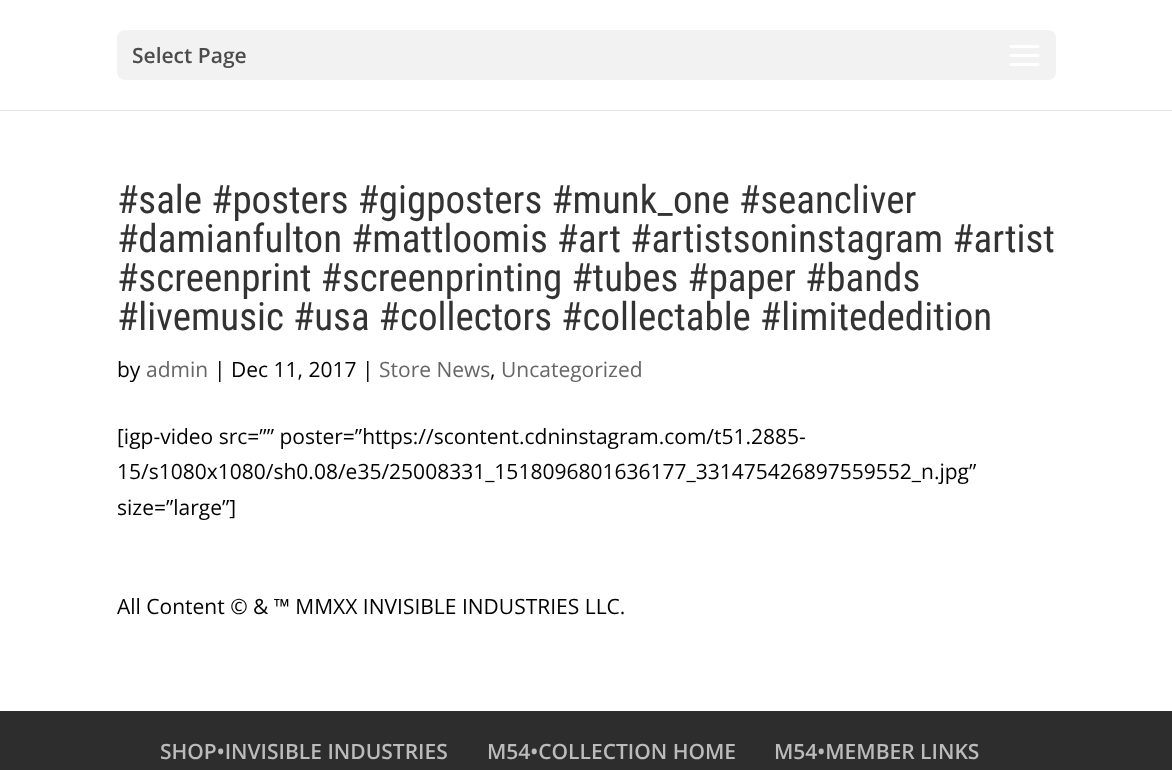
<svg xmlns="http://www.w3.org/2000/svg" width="1172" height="770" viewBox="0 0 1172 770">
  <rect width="100%" height="100%" fill="#ffffff"/>
  <rect x="0" y="110" width="1172" height="1" fill="#e6e6e6"/>
  <rect x="117" y="30" width="939" height="50" rx="8" fill="#f2f2f2"/>
  <text x="132" y="63" font-family="Open Sans" font-size="21" font-weight="600" fill="#4c4c4c">Select Page</text>
  <image x="1009" y="45" width="31" height="21" href="img1.png"/>
  <text x="117" y="213" font-family="Roboto Condensed" font-size="39" fill="#333333">#sale #posters #gigposters #munk_one #seancliver</text>
  <text x="117" y="252" font-family="Roboto Condensed" font-size="39" fill="#333333">#damianfulton #mattloomis #art #artistsoninstagram #artist</text>
  <text x="117" y="291" font-family="Roboto Condensed" font-size="39" fill="#333333">#screenprint #screenprinting #tubes #paper #bands</text>
  <text x="117" y="330" font-family="Roboto Condensed" font-size="39" fill="#333333">#livemusic #usa #collectors #collectable #limitededition</text>
  <text x="117" y="377" font-family="Open Sans" font-size="21" fill="#000000">by</text>
  <text x="146" y="377" font-family="Open Sans" font-size="21" fill="#666666">admin</text>
  <text x="214" y="377" font-family="Open Sans" font-size="21" fill="#000000">| Dec 11, 2017 |</text>
  <text x="379" y="377" font-family="Open Sans" font-size="21" fill="#666666">Store News</text>
  <text x="490" y="377" font-family="Open Sans" font-size="21" fill="#000000">,</text>
  <text x="501" y="377" font-family="Open Sans" font-size="21" fill="#666666">Uncategorized</text>
  <text x="117" y="444" font-family="Open Sans" font-size="21" fill="#000000">[igp-video src=”” poster=”https://scontent.cdninstagram.com/t51.2885-</text>
  <text x="117" y="479" font-family="Open Sans" font-size="21" fill="#000000">15/s1080x1080/sh0.08/e35/25008331_1518096801636177_331475426897559552_n.jpg”</text>
  <text x="117" y="515" font-family="Open Sans" font-size="21" fill="#000000">size=”large”]</text>
  <text x="117" y="614" font-family="Open Sans" font-size="21" fill="#000000">All Content © &amp; ™ MMXX INVISIBLE INDUSTRIES LLC.</text>
  <rect x="0" y="711" width="1172" height="59" fill="#2d2d2d"/>
  <text x="160" y="759" font-family="Open Sans" font-size="21" font-weight="600" fill="#bbbbbb">SHOP•INVISIBLE INDUSTRIES</text>
  <text x="487" y="759" font-family="Open Sans" font-size="21" font-weight="600" fill="#bbbbbb">M54•COLLECTION HOME</text>
  <text x="774" y="759" font-family="Open Sans" font-size="21" font-weight="600" fill="#bbbbbb">M54•MEMBER LINKS</text>
</svg>
